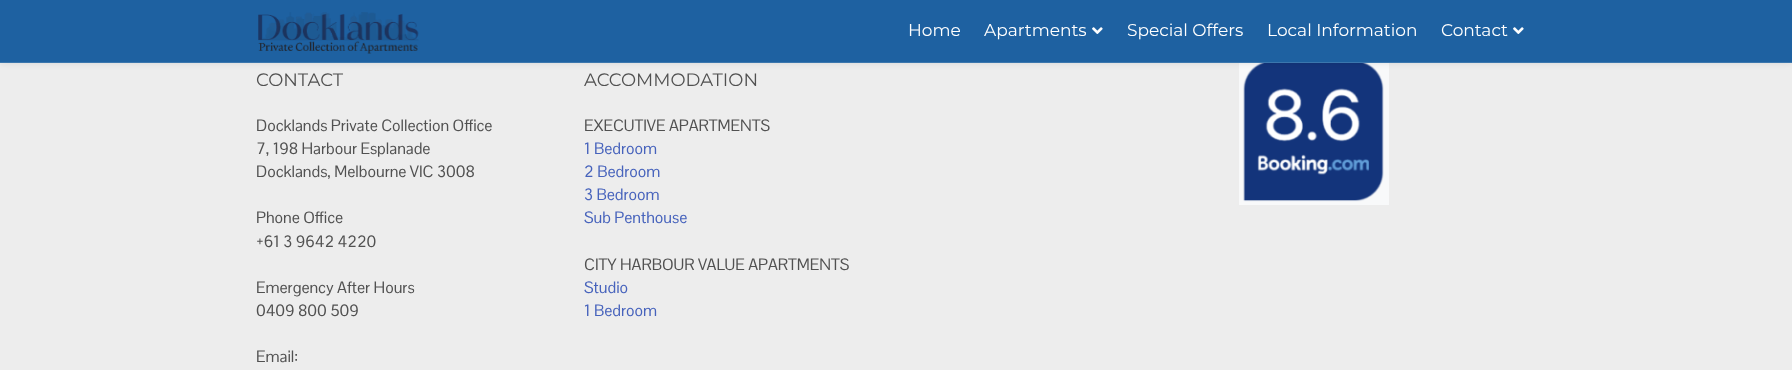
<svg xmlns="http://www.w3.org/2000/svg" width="1792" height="370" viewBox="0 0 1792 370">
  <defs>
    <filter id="blur1" x="-50%" y="-200%" width="200%" height="500%"><feGaussianBlur stdDeviation="3.5"/></filter>
  </defs>
  <rect width="100%" height="100%" fill="#ededed"/>
  <image x="1239" y="63" width="150" height="142" href="img3.png"/>
  <rect x="0" y="0" width="1792" height="63" fill="#000000" fill-opacity="0.1" filter="url(#blur1)"/>
  <rect x="0" y="0" width="1792" height="62" fill="#1e61a1"/>
  <rect x="0" y="62" width="1792" height="1" fill="#3b76ad"/>
  <image x="258" y="12" width="161" height="42" href="img1.png"/>
  <text x="908" y="36" font-family="Montserrat" font-size="17" font-weight="100" fill="#ffffff">Home</text>
  <text x="984" y="36" font-family="Montserrat" font-size="17" font-weight="100" fill="#ffffff">Apartments</text>
  <image x="1092" y="27" width="11" height="7" href="img2.png"/>
  <text x="1127" y="36" font-family="Montserrat" font-size="17" font-weight="100" fill="#ffffff">Special Offers</text>
  <text x="1267" y="36" font-family="Montserrat" font-size="17" font-weight="100" fill="#ffffff">Local Information</text>
  <text x="1441" y="36" font-family="Montserrat" font-size="17" font-weight="100" fill="#ffffff">Contact</text>
  <image x="1513" y="27" width="11" height="7" href="img2.png"/>
  <text x="256" y="86" font-family="Montserrat" font-size="18" font-weight="100" fill="#515151">CONTACT</text>
  <text x="256" y="131" font-family="Pontano Sans" font-size="16" fill="#515151">Docklands Private Collection Office</text>
  <text x="256" y="154" font-family="Pontano Sans" font-size="16" fill="#515151">7, 198 Harbour Esplanade</text>
  <text x="256" y="177" font-family="Pontano Sans" font-size="16" fill="#515151">Docklands, Melbourne VIC 3008</text>
  <text x="256" y="223" font-family="Pontano Sans" font-size="16" fill="#515151">Phone Office</text>
  <text x="256" y="247" font-family="Pontano Sans" font-size="16" fill="#515151">+61 3 9642 4220</text>
  <text x="256" y="293" font-family="Pontano Sans" font-size="16" fill="#515151">Emergency After Hours</text>
  <text x="256" y="316" font-family="Pontano Sans" font-size="16" fill="#515151">0409 800 509</text>
  <text x="256" y="362" font-family="Pontano Sans" font-size="16" fill="#515151">Email:</text>
  <text x="584" y="86" font-family="Montserrat" font-size="18" font-weight="100" fill="#515151">ACCOMMODATION</text>
  <text x="584" y="131" font-family="Pontano Sans" font-size="16" fill="#515151">EXECUTIVE APARTMENTS</text>
  <text x="584" y="154" font-family="Pontano Sans" font-size="16" fill="#4763bc">1 Bedroom</text>
  <text x="584" y="177" font-family="Pontano Sans" font-size="16" fill="#4763bc">2 Bedroom</text>
  <text x="584" y="200" font-family="Pontano Sans" font-size="16" fill="#4763bc">3 Bedroom</text>
  <text x="584" y="223" font-family="Pontano Sans" font-size="16" fill="#4763bc">Sub Penthouse</text>
  <text x="584" y="270" font-family="Pontano Sans" font-size="16" fill="#515151">CITY HARBOUR VALUE APARTMENTS</text>
  <text x="584" y="293" font-family="Pontano Sans" font-size="16" fill="#4763bc">Studio</text>
  <text x="584" y="316" font-family="Pontano Sans" font-size="16" fill="#4763bc">1 Bedroom</text>
</svg>
